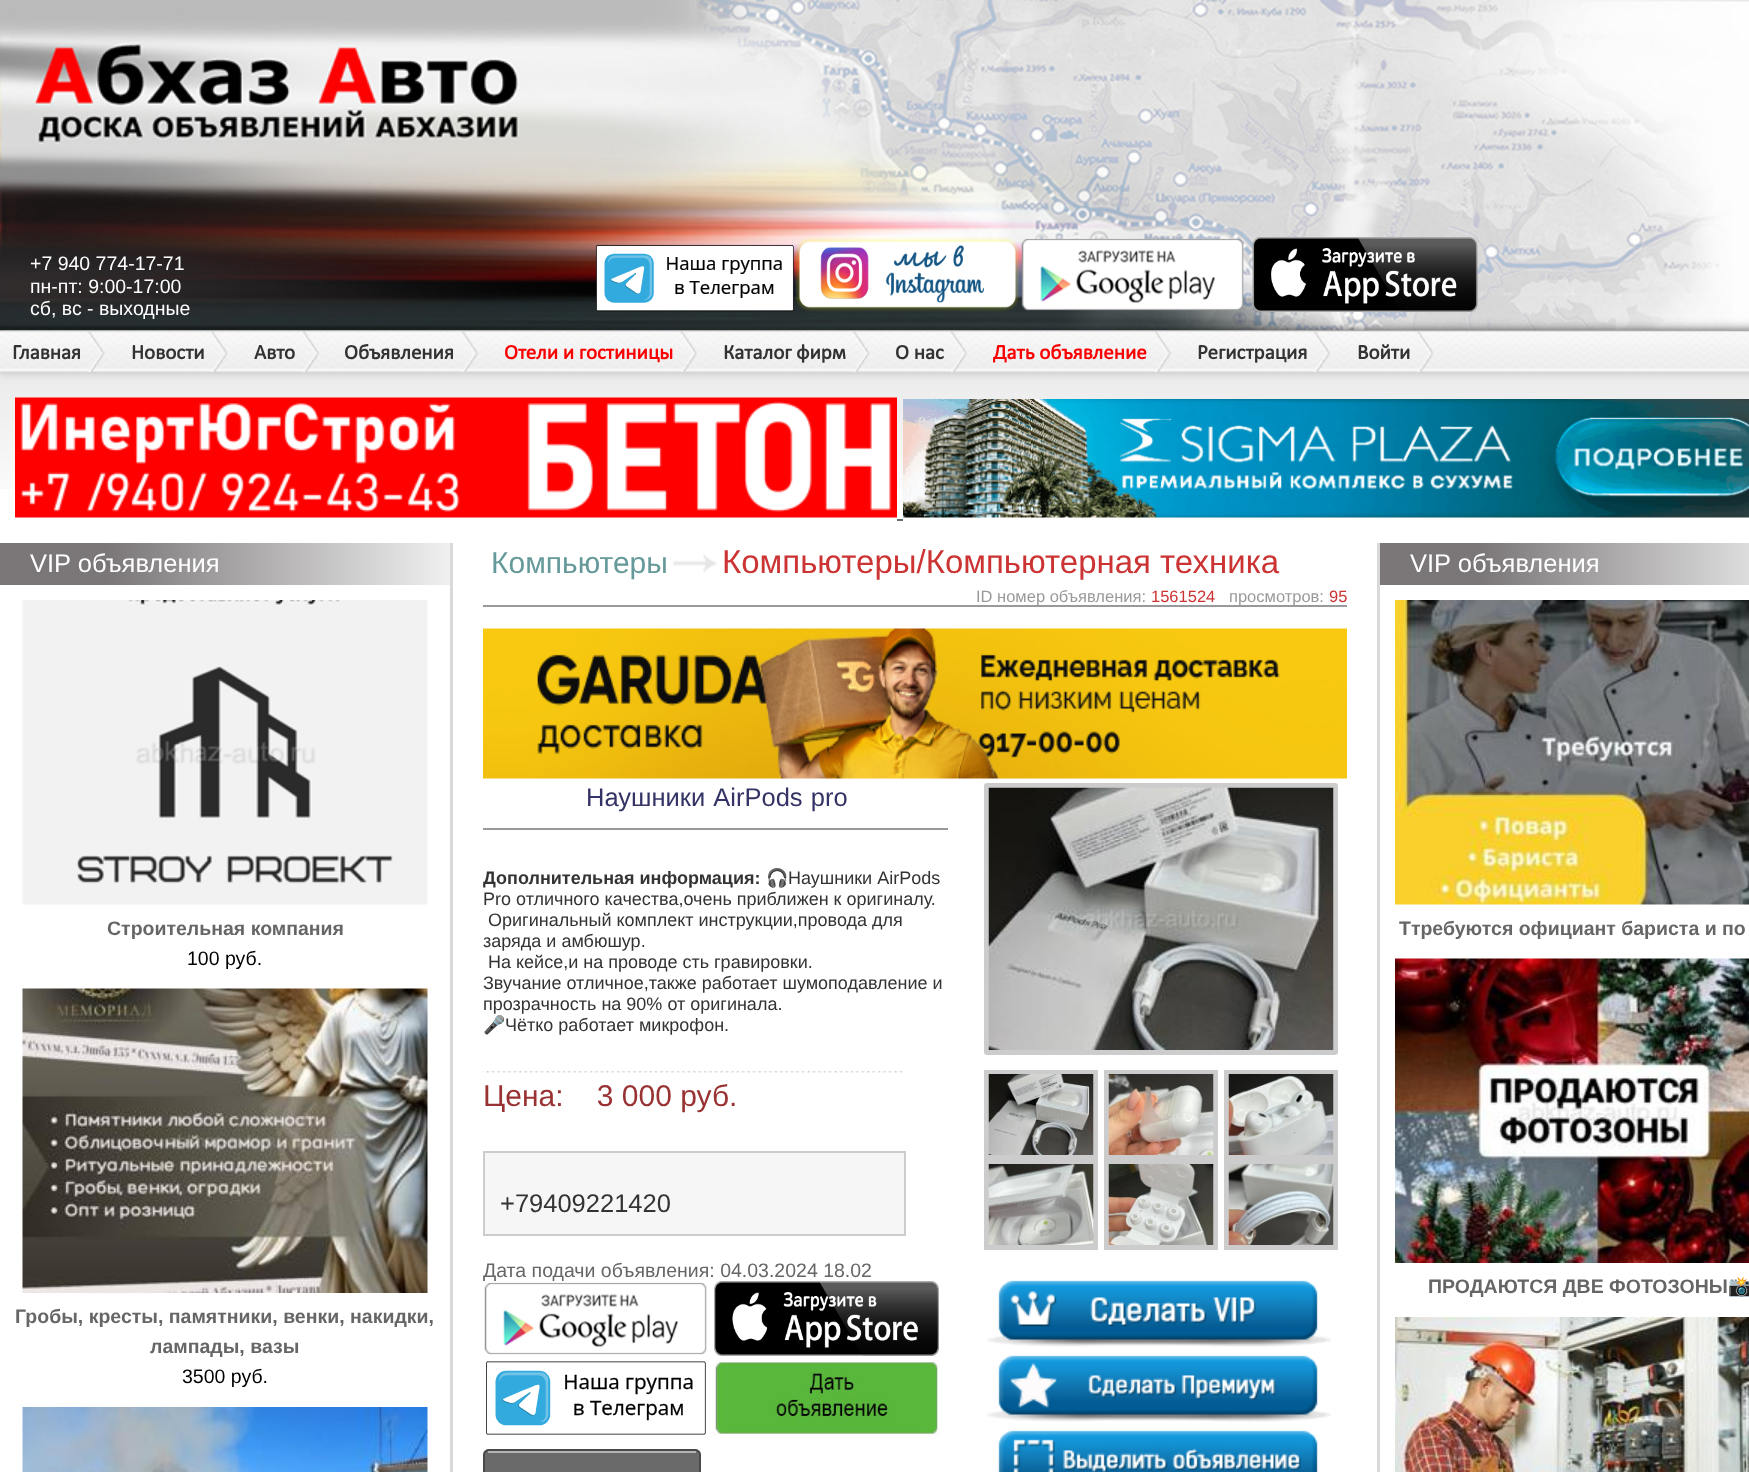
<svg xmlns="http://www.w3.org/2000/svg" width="1749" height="1472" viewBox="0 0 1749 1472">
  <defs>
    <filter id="blur1" x="-50%" y="-200%" width="200%" height="500%"><feGaussianBlur stdDeviation="4"/></filter>
    <linearGradient id="g1" gradientUnits="userSpaceOnUse" x1="0" y1="543" x2="450" y2="543"><stop offset="0.24" stop-color="#7b7778"/><stop offset="1" stop-color="#f0f0f0"/></linearGradient>
    <filter id="blur2" x="-50%" y="-200%" width="200%" height="500%"><feGaussianBlur stdDeviation="0.5"/></filter>
    <linearGradient id="g2" gradientUnits="userSpaceOnUse" x1="1380" y1="543" x2="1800" y2="543"><stop offset="0.24" stop-color="#7b7778"/><stop offset="1" stop-color="#f0f0f0"/></linearGradient>
  </defs>
  <rect width="100%" height="100%" fill="#ffffff"/>
  <image x="0" y="330" width="1749" height="1" href="img1.png"/>
  <image x="0" y="373" width="1749" height="116" href="img7.png"/>
  <rect x="0" y="331" width="1749" height="1" fill="#cfcfcf"/>
  <rect x="0" y="332" width="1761" height="42" fill="#cccccc" filter="url(#blur1)"/>
  <image x="0" y="0" width="1749" height="330" href="img2.png"/>
  <text x="30" y="270" font-family="Liberation Sans" font-size="19.5" fill="#ffffff">+7 940 774-17-71</text>
  <text x="30" y="293" font-family="Liberation Sans" font-size="19.5" fill="#ffffff">пн-пт: 9:00-17:00</text>
  <text x="30" y="315" font-family="Liberation Sans" font-size="19.5" fill="#ffffff">сб, вс - выходные</text>
  <image x="596" y="245" width="198" height="67" href="img3.png"/>
  <image x="795" y="237" width="225" height="75" href="img4.png"/>
  <image x="1021" y="238" width="223" height="73" href="img5.png"/>
  <image x="1252" y="237" width="226" height="75" href="img6.png"/>
  <image x="15" y="397" width="882" height="121" href="img8.png"/>
  <image x="903" y="399" width="846" height="119" href="img9.png"/>
  <rect x="897" y="519" width="6" height="2" fill="#6a6a6a"/>
  <image x="0" y="331" width="1749" height="43" href="img10.png"/>
  <image x="88" y="331" width="17" height="41" href="img11.png"/>
  <text x="12" y="359" font-family="Calibri" font-size="21" font-weight="bold" fill="#333333">Главная</text>
  <image x="211" y="331" width="17" height="41" href="img12.png"/>
  <text x="131" y="359" font-family="Calibri" font-size="21" font-weight="bold" fill="#333333">Новости</text>
  <image x="302" y="331" width="18" height="41" href="img13.png"/>
  <text x="254" y="359" font-family="Calibri" font-size="21" font-weight="bold" fill="#333333">Авто</text>
  <image x="461" y="331" width="18" height="41" href="img14.png"/>
  <text x="344" y="359" font-family="Calibri" font-size="21" font-weight="bold" fill="#333333">Объявления</text>
  <image x="680" y="331" width="18" height="41" href="img15.png"/>
  <text x="504" y="359" font-family="Calibri" font-size="21" font-weight="bold" fill="#fb0000">Отели и гостиницы</text>
  <image x="853" y="331" width="17" height="41" href="img11.png"/>
  <text x="723" y="359" font-family="Calibri" font-size="21" font-weight="bold" fill="#333333">Каталог фирм</text>
  <image x="950" y="331" width="18" height="41" href="img16.png"/>
  <text x="895" y="359" font-family="Calibri" font-size="21" font-weight="bold" fill="#333333">О нас</text>
  <image x="1154" y="331" width="18" height="41" href="img17.png"/>
  <text x="993" y="359" font-family="Calibri" font-size="21" font-weight="bold" fill="#fb0000">Дать объявление</text>
  <image x="1313" y="331" width="18" height="41" href="img18.png"/>
  <text x="1197" y="359" font-family="Calibri" font-size="21" font-weight="bold" fill="#333333">Регистрация</text>
  <image x="1417" y="331" width="17" height="41" href="img19.png"/>
  <text x="1357" y="359" font-family="Calibri" font-size="21" font-weight="bold" fill="#333333">Войти</text>
  <rect x="0" y="543" width="450" height="42" fill="url(#g1)"/>
  <text x="30" y="572" font-family="Liberation Sans" font-size="25.5" fill="#ffffff">VIP объявления</text>
  <image x="22" y="600" width="406" height="305" href="img20.png"/>
  <text x="107" y="935" font-family="Liberation Sans" font-size="19.5" font-weight="bold" fill="#666666">Строительная компания</text>
  <text x="187" y="965" font-family="Liberation Sans" font-size="19.5" fill="#000000">100 руб.</text>
  <image x="22" y="988" width="406" height="305" href="img21.png"/>
  <text x="15" y="1323" font-family="Liberation Sans" font-size="19.5" font-weight="bold" fill="#666666">Гробы, кресты, памятники, венки, накидки,</text>
  <text x="150" y="1353" font-family="Liberation Sans" font-size="19.5" font-weight="bold" fill="#666666">лампады, вазы</text>
  <text x="182" y="1383" font-family="Liberation Sans" font-size="19.5" fill="#000000">3500 руб.</text>
  <image x="22" y="1407" width="406" height="65" href="img22.png"/>
  <rect x="1377" y="543" width="3" height="929" fill="#d9d9d9"/>
  <rect x="450" y="543" width="3" height="929" fill="#d9d9d9"/>
  <rect x="483" y="605" width="864" height="2" fill="#999999"/>
  <text x="491" y="573" font-family="Liberation Sans" font-size="30" fill="#669999">Компьютеры</text>
  <image x="673" y="554" width="44" height="19" href="img23.png"/>
  <text x="722" y="573" font-family="Liberation Sans" font-size="33" fill="#cc3333">Компьютеры/Компьютерная техника</text>
  <text x="976" y="602" font-family="Liberation Sans" font-size="16.5" fill="#999999">ID номер объявления:</text>
  <text x="1151" y="602" font-family="Liberation Sans" font-size="16.5" fill="#cc3333">1561524</text>
  <text x="1229" y="602" font-family="Liberation Sans" font-size="16.5" fill="#999999">просмотров:</text>
  <text x="1329" y="602" font-family="Liberation Sans" font-size="16.5" fill="#cc3333">95</text>
  <image x="483" y="628" width="864" height="151" href="img24.png"/>
  <rect x="483" y="828" width="465" height="2" fill="#999999"/>
  <text x="586" y="806" word-spacing="1" font-family="Liberation Sans" font-size="25.5" fill="#333366">Наушники AirPods pro</text>
  <text x="483" y="884" font-family="Liberation Sans" font-size="18" font-weight="bold" fill="#333333">Дополнительная информация:</text>
  <text x="766" y="884" font-family="Noto Color Emoji" font-size="18" fill="#333333">🎧</text>
  <text x="788" y="884" font-family="Liberation Sans" font-size="18" fill="#333333">Наушники AirPods</text>
  <text x="483" y="905" font-family="Liberation Sans" font-size="18" fill="#333333">Pro отличного качества,очень приближен к оригиналу.</text>
  <text x="488" y="926" font-family="Liberation Sans" font-size="18" fill="#333333">Оригинальный комплект инструкции,провода для</text>
  <text x="483" y="947" font-family="Liberation Sans" font-size="18" fill="#333333">заряда и амбюшур.</text>
  <text x="488" y="968" font-family="Liberation Sans" font-size="18" fill="#333333">На кейсе,и на проводе сть гравировки.</text>
  <text x="483" y="989" font-family="Liberation Sans" font-size="18" fill="#333333">Звучание отличное,также работает шумоподавление и</text>
  <text x="483" y="1010" font-family="Liberation Sans" font-size="18" fill="#333333">прозрачность на 90% от оригинала.</text>
  <text x="483" y="1031" font-family="Noto Color Emoji" font-size="18" fill="#333333">🎤</text>
  <text x="505" y="1031" font-family="Liberation Sans" font-size="18" fill="#333333">Чётко работает микрофон.</text>
  <image x="483" y="1071" width="420" height="2" href="img25.png"/>
  <text x="483" y="1106" font-family="Liberation Sans" font-size="30" fill="#993333" xml:space="preserve">Цена:    3 000 руб.</text>
  <rect x="484" y="1152" width="421" height="83" fill="#f6f6f6" stroke="#cccccc" stroke-width="2"/>
  <text x="500" y="1212" font-family="Liberation Sans" font-size="25.5" fill="#333333">+79409221420</text>
  <text x="483" y="1277" font-family="Liberation Sans" font-size="19.5" fill="#666666">Дата подачи объявления: 04.03.2024 18.02</text>
  <image x="484" y="1282" width="223" height="73" href="img26.png"/>
  <image x="714" y="1281" width="225" height="75" href="img27.png"/>
  <image x="486" y="1361" width="220" height="74" href="img28.png"/>
  <image x="714" y="1360" width="225" height="76" href="img29.png"/>
  <rect x="483" y="1449" width="218" height="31" rx="6" fill="#000000" fill-opacity="0.4" filter="url(#blur2)"/>
  <rect x="483" y="1449" width="218" height="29" rx="6" fill="#6a6a6a"/>
  <rect x="484" y="1450" width="216" height="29" rx="5" fill="none" stroke="#000000" stroke-opacity="0.3" stroke-width="2"/>
  <rect x="488" y="1451" width="208" height="2" fill="#b4b4b4"/>
  <rect x="986.5" y="785.5" width="349" height="267" rx="0.5" fill="none" stroke="#cccccc" stroke-width="5"/>
  <image x="988" y="787" width="346" height="263" href="img30.png"/>
  <rect x="986.5" y="1072.5" width="109" height="85" fill="none" stroke="#cccccc" stroke-width="5"/>
  <image x="988" y="1074" width="106" height="81" href="img31.png"/>
  <rect x="1106.5" y="1072.5" width="109" height="85" fill="none" stroke="#cccccc" stroke-width="5"/>
  <image x="1108" y="1074" width="106" height="81" href="img32.png"/>
  <rect x="1226.5" y="1072.5" width="109" height="85" fill="none" stroke="#cccccc" stroke-width="5"/>
  <image x="1228" y="1074" width="106" height="81" href="img33.png"/>
  <rect x="986.5" y="1162.5" width="109" height="85" fill="none" stroke="#cccccc" stroke-width="5"/>
  <image x="988" y="1164" width="106" height="81" href="img34.png"/>
  <rect x="1106.5" y="1162.5" width="109" height="85" fill="none" stroke="#cccccc" stroke-width="5"/>
  <image x="1108" y="1164" width="106" height="81" href="img35.png"/>
  <rect x="1226.5" y="1162.5" width="109" height="85" fill="none" stroke="#cccccc" stroke-width="5"/>
  <image x="1228" y="1164" width="106" height="81" href="img36.png"/>
  <image x="987" y="1280" width="344" height="67" href="img37.png"/>
  <image x="987" y="1355" width="344" height="67" href="img38.png"/>
  <image x="998" y="1430" width="320" height="42" href="img39.png"/>
  <rect x="1380" y="543" width="369" height="42" fill="url(#g2)"/>
  <text x="1410" y="572" font-family="Liberation Sans" font-size="25.5" fill="#ffffff">VIP объявления</text>
  <image x="1395" y="600" width="354" height="305" href="img40.png"/>
  <text x="1399" y="935" font-family="Liberation Sans" font-size="19.5" font-weight="bold" fill="#666666">Ттребуются официант бариста и по</text>
  <image x="1395" y="958" width="354" height="305" href="img41.png"/>
  <text x="1428" y="1293" font-family="Liberation Sans" font-size="19.5" font-weight="bold" fill="#666666">ПРОДАЮТСЯ ДВЕ ФОТОЗОНЫ</text>
  <text x="1728" y="1293" font-family="Noto Color Emoji" font-size="19.5" font-weight="bold" fill="#666666">📸</text>
  <image x="1395" y="1317" width="354" height="155" href="img42.png"/>
</svg>
